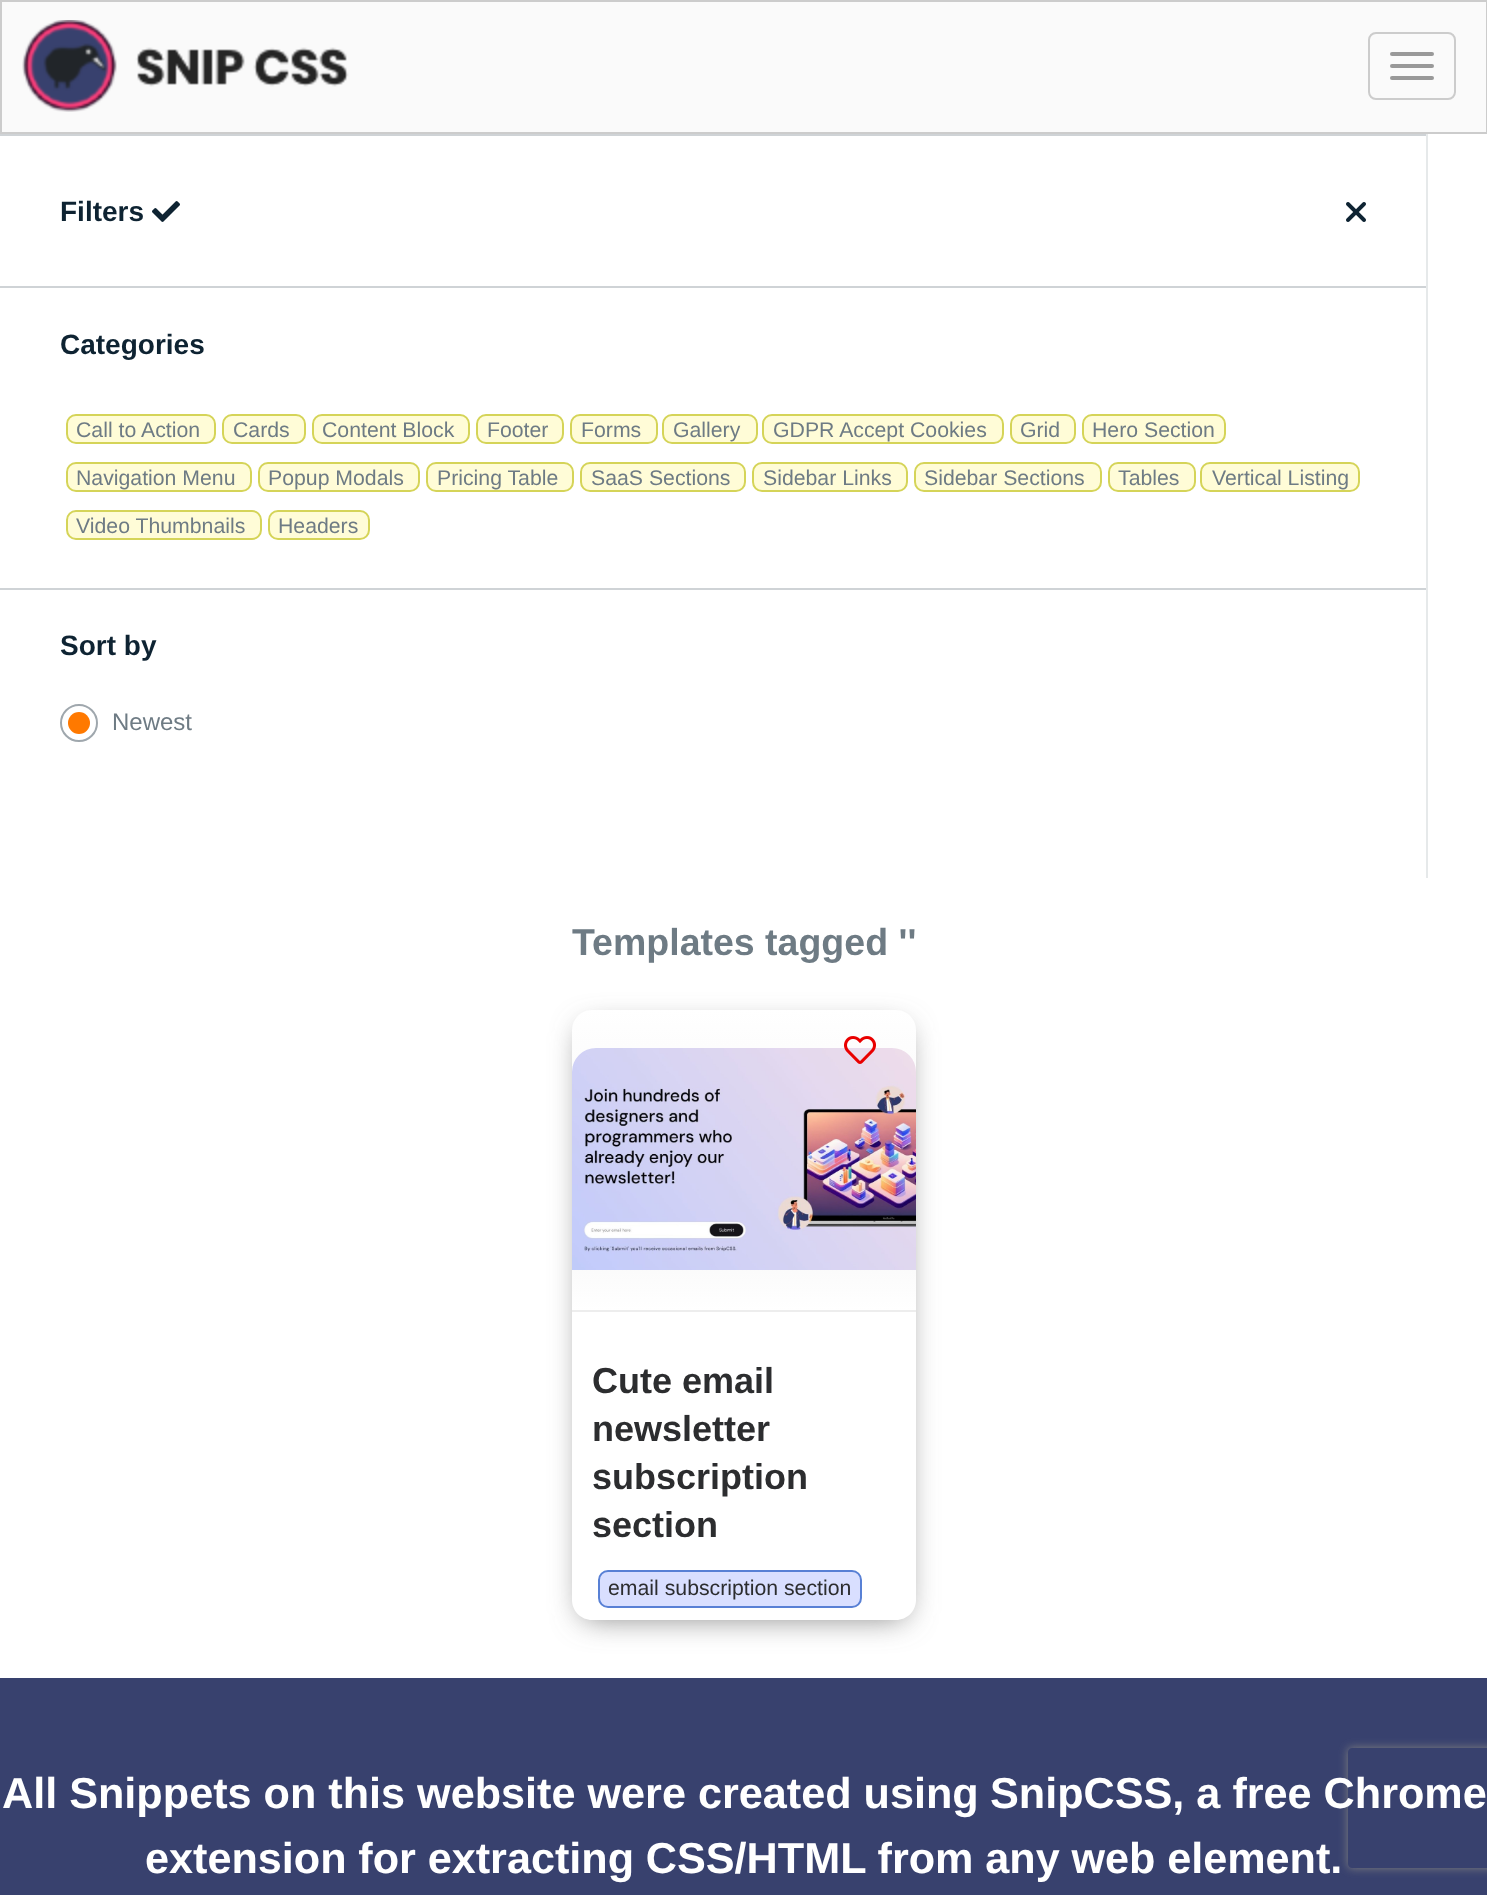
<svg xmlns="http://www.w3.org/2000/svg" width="1487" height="1895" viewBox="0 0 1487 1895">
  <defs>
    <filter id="blur1" x="-50%" y="-200%" width="200%" height="500%"><feGaussianBlur stdDeviation="15"/></filter>
    <linearGradient id="g1" gradientUnits="userSpaceOnUse" x1="744" y1="1310" x2="744" y2="1010"><stop offset="0" stop-color="#ffffff"/><stop offset="0.35" stop-color="#f4f4f4"/><stop offset="1" stop-color="#ffffff"/></linearGradient>
    <clipPath id="clip1"><path d="M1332 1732H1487V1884H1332ZM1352 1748H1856C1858 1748 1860 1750 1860 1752V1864C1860 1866 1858 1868 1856 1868H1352C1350 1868 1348 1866 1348 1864V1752C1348 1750 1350 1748 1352 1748Z" clip-rule="evenodd"/></clipPath>
    <filter id="blur2" x="-50%" y="-200%" width="200%" height="500%"><feGaussianBlur stdDeviation="5"/></filter>
  </defs>
  <rect width="100%" height="100%" fill="#ffffff"/>
  <rect x="1" y="1" width="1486" height="132" fill="#fafafa" stroke="#cccccc" stroke-width="2"/>
  <image x="22" y="20" width="327" height="92" href="img1.png"/>
  <rect x="1369" y="33" width="86" height="66" rx="7" fill="none" stroke="#cccccc" stroke-width="2"/>
  <rect x="1390" y="52" width="44" height="4" rx="2" fill="#999999"/>
  <rect x="1390" y="64" width="44" height="4" rx="2" fill="#999999"/>
  <rect x="1390" y="76" width="44" height="4" rx="2" fill="#999999"/>
  <rect x="1426" y="134" width="2" height="744" fill="#e6e9ea"/>
  <rect x="0" y="134" width="1426" height="2" fill="#cfd3d6"/>
  <rect x="0" y="286" width="1426" height="2" fill="#cfd3d6"/>
  <text x="60" y="221" font-family="Liberation Sans" font-size="28" font-weight="bold" fill="#0e2332">Filters</text>
  <image x="152" y="201" width="28" height="21" href="img2.png"/>
  <image x="1346" y="202" width="20" height="20" href="img3.png"/>
  <rect x="0" y="588" width="1426" height="2" fill="#cfd3d6"/>
  <text x="60" y="354" font-family="Liberation Sans" font-size="28" font-weight="bold" fill="#0e2332">Categories</text>
  <rect x="67" y="415" width="148" height="28" rx="9" fill="#fffcd7" stroke="#d5d458" stroke-width="2"/>
  <text x="76" y="437" font-family="Liberation Sans" font-size="21.25" fill="#6e7b84">Call to Action</text>
  <rect x="223" y="415" width="82" height="28" rx="9" fill="#fffcd7" stroke="#d5d458" stroke-width="2"/>
  <text x="233" y="437" font-family="Liberation Sans" font-size="21.25" fill="#6e7b84">Cards</text>
  <rect x="313" y="415" width="156" height="28" rx="9" fill="#fffcd7" stroke="#d5d458" stroke-width="2"/>
  <text x="322" y="437" font-family="Liberation Sans" font-size="21.25" fill="#6e7b84">Content Block</text>
  <rect x="477" y="415" width="86" height="28" rx="9" fill="#fffcd7" stroke="#d5d458" stroke-width="2"/>
  <text x="487" y="437" font-family="Liberation Sans" font-size="21.25" fill="#6e7b84">Footer</text>
  <rect x="571" y="415" width="86" height="28" rx="9" fill="#fffcd7" stroke="#d5d458" stroke-width="2"/>
  <text x="581" y="437" font-family="Liberation Sans" font-size="21.25" fill="#6e7b84">Forms</text>
  <rect x="663" y="415" width="94" height="28" rx="9" fill="#fffcd7" stroke="#d5d458" stroke-width="2"/>
  <text x="673" y="437" font-family="Liberation Sans" font-size="21.25" fill="#6e7b84">Gallery</text>
  <rect x="763" y="415" width="240" height="28" rx="9" fill="#fffcd7" stroke="#d5d458" stroke-width="2"/>
  <text x="773" y="437" font-family="Liberation Sans" font-size="21.25" fill="#6e7b84">GDPR Accept Cookies</text>
  <rect x="1011" y="415" width="64" height="28" rx="9" fill="#fffcd7" stroke="#d5d458" stroke-width="2"/>
  <text x="1020" y="437" font-family="Liberation Sans" font-size="21.25" fill="#6e7b84">Grid</text>
  <rect x="1083" y="415" width="142" height="28" rx="9" fill="#fffcd7" stroke="#d5d458" stroke-width="2"/>
  <text x="1092" y="437" font-family="Liberation Sans" font-size="21.25" fill="#6e7b84">Hero Section</text>
  <rect x="67" y="463" width="184" height="28" rx="9" fill="#fffcd7" stroke="#d5d458" stroke-width="2"/>
  <text x="76" y="485" font-family="Liberation Sans" font-size="21.25" fill="#6e7b84">Navigation Menu</text>
  <rect x="259" y="463" width="160" height="28" rx="9" fill="#fffcd7" stroke="#d5d458" stroke-width="2"/>
  <text x="268" y="485" font-family="Liberation Sans" font-size="21.25" fill="#6e7b84">Popup Modals</text>
  <rect x="427" y="463" width="146" height="28" rx="9" fill="#fffcd7" stroke="#d5d458" stroke-width="2"/>
  <text x="437" y="485" font-family="Liberation Sans" font-size="21.25" fill="#6e7b84">Pricing Table</text>
  <rect x="581" y="463" width="164" height="28" rx="9" fill="#fffcd7" stroke="#d5d458" stroke-width="2"/>
  <text x="591" y="485" font-family="Liberation Sans" font-size="21.25" fill="#6e7b84">SaaS Sections</text>
  <rect x="753" y="463" width="154" height="28" rx="9" fill="#fffcd7" stroke="#d5d458" stroke-width="2"/>
  <text x="763" y="485" font-family="Liberation Sans" font-size="21.25" fill="#6e7b84">Sidebar Links</text>
  <rect x="915" y="463" width="186" height="28" rx="9" fill="#fffcd7" stroke="#d5d458" stroke-width="2"/>
  <text x="924" y="485" font-family="Liberation Sans" font-size="21.25" fill="#6e7b84">Sidebar Sections</text>
  <rect x="1109" y="463" width="86" height="28" rx="9" fill="#fffcd7" stroke="#d5d458" stroke-width="2"/>
  <text x="1118" y="485" font-family="Liberation Sans" font-size="21.25" fill="#6e7b84">Tables</text>
  <rect x="1201" y="463" width="158" height="28" rx="9" fill="#fffcd7" stroke="#d5d458" stroke-width="2"/>
  <text x="1212" y="485" font-family="Liberation Sans" font-size="21.25" fill="#6e7b84">Vertical Listing</text>
  <rect x="67" y="511" width="194" height="28" rx="9" fill="#fffcd7" stroke="#d5d458" stroke-width="2"/>
  <text x="76" y="533" font-family="Liberation Sans" font-size="21.25" fill="#6e7b84">Video Thumbnails</text>
  <rect x="269" y="511" width="100" height="28" rx="9" fill="#fffcd7" stroke="#d5d458" stroke-width="2"/>
  <text x="278" y="533" font-family="Liberation Sans" font-size="21.25" fill="#6e7b84">Headers</text>
  <text x="60" y="655" font-family="Liberation Sans" font-size="28" font-weight="bold" fill="#0e2332">Sort by</text>
  <circle cx="79" cy="723" r="18" fill="none" stroke="#9fa7ad" stroke-width="2"/>
  <circle cx="79" cy="723" r="11" fill="#ff7900"/>
  <text x="112" y="730" font-family="Liberation Sans" font-size="24" fill="#6e7b84">Newest</text>
  <text x="572" y="955" font-family="Liberation Sans" font-size="37.5" font-weight="bold" fill="#6e7b84">Templates tagged ''</text>
  <rect x="582" y="1028" width="324" height="590" rx="10" fill="#818181" filter="url(#blur1)"/>
  <path d="M592 1010H896C907 1010 916 1019 916 1030V1310H572V1030C572 1019 581 1010 592 1010Z" fill="url(#g1)"/>
  <image x="572" y="1048" width="344" height="222" href="img4.png"/>
  <image x="844" y="1036" width="32" height="28" href="img5.png"/>
  <path d="M572 1310H916V1600C916 1611 907 1620 896 1620H592C581 1620 572 1611 572 1600Z" fill="#ffffff"/>
  <rect x="572" y="1310" width="344" height="2" fill="#ededed"/>
  <text x="592" y="1393" font-family="Liberation Sans" font-size="36" font-weight="bold" fill="#2c2d2f">Cute email</text>
  <text x="592" y="1441" font-family="Liberation Sans" font-size="36" font-weight="bold" fill="#2c2d2f">newsletter</text>
  <text x="592" y="1489" font-family="Liberation Sans" font-size="36" font-weight="bold" fill="#2c2d2f">subscription</text>
  <text x="592" y="1537" font-family="Liberation Sans" font-size="36" font-weight="bold" fill="#2c2d2f">section</text>
  <rect x="599" y="1571" width="262" height="36" rx="9" fill="#d9dfff" stroke="#5880d5" stroke-width="2"/>
  <text x="608" y="1595" font-family="Liberation Sans" font-size="21.25" fill="#2c2d2f">email subscription section</text>
  <rect x="0" y="1678" width="1487" height="217" fill="#38416e"/>
  <g clip-path="url(#clip1)">
    <rect x="1348" y="1748" width="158" height="120" rx="4" fill="#808080" filter="url(#blur2)"/>
  </g>
  <text x="2" y="1808" font-family="Liberation Sans" font-size="43.2" font-weight="bold" fill="#ffffff">All Snippets on this website were created using</text>
  <text x="990" y="1808" font-family="Liberation Sans" font-size="43.2" font-weight="bold" fill="#ffffff">SnipCSS, a free Chrome</text>
  <text x="145" y="1873" word-spacing="-0.25" font-family="Liberation Sans" font-size="43.2" font-weight="bold" fill="#ffffff">extension for extracting CSS/HTML from any web element.</text>
</svg>
